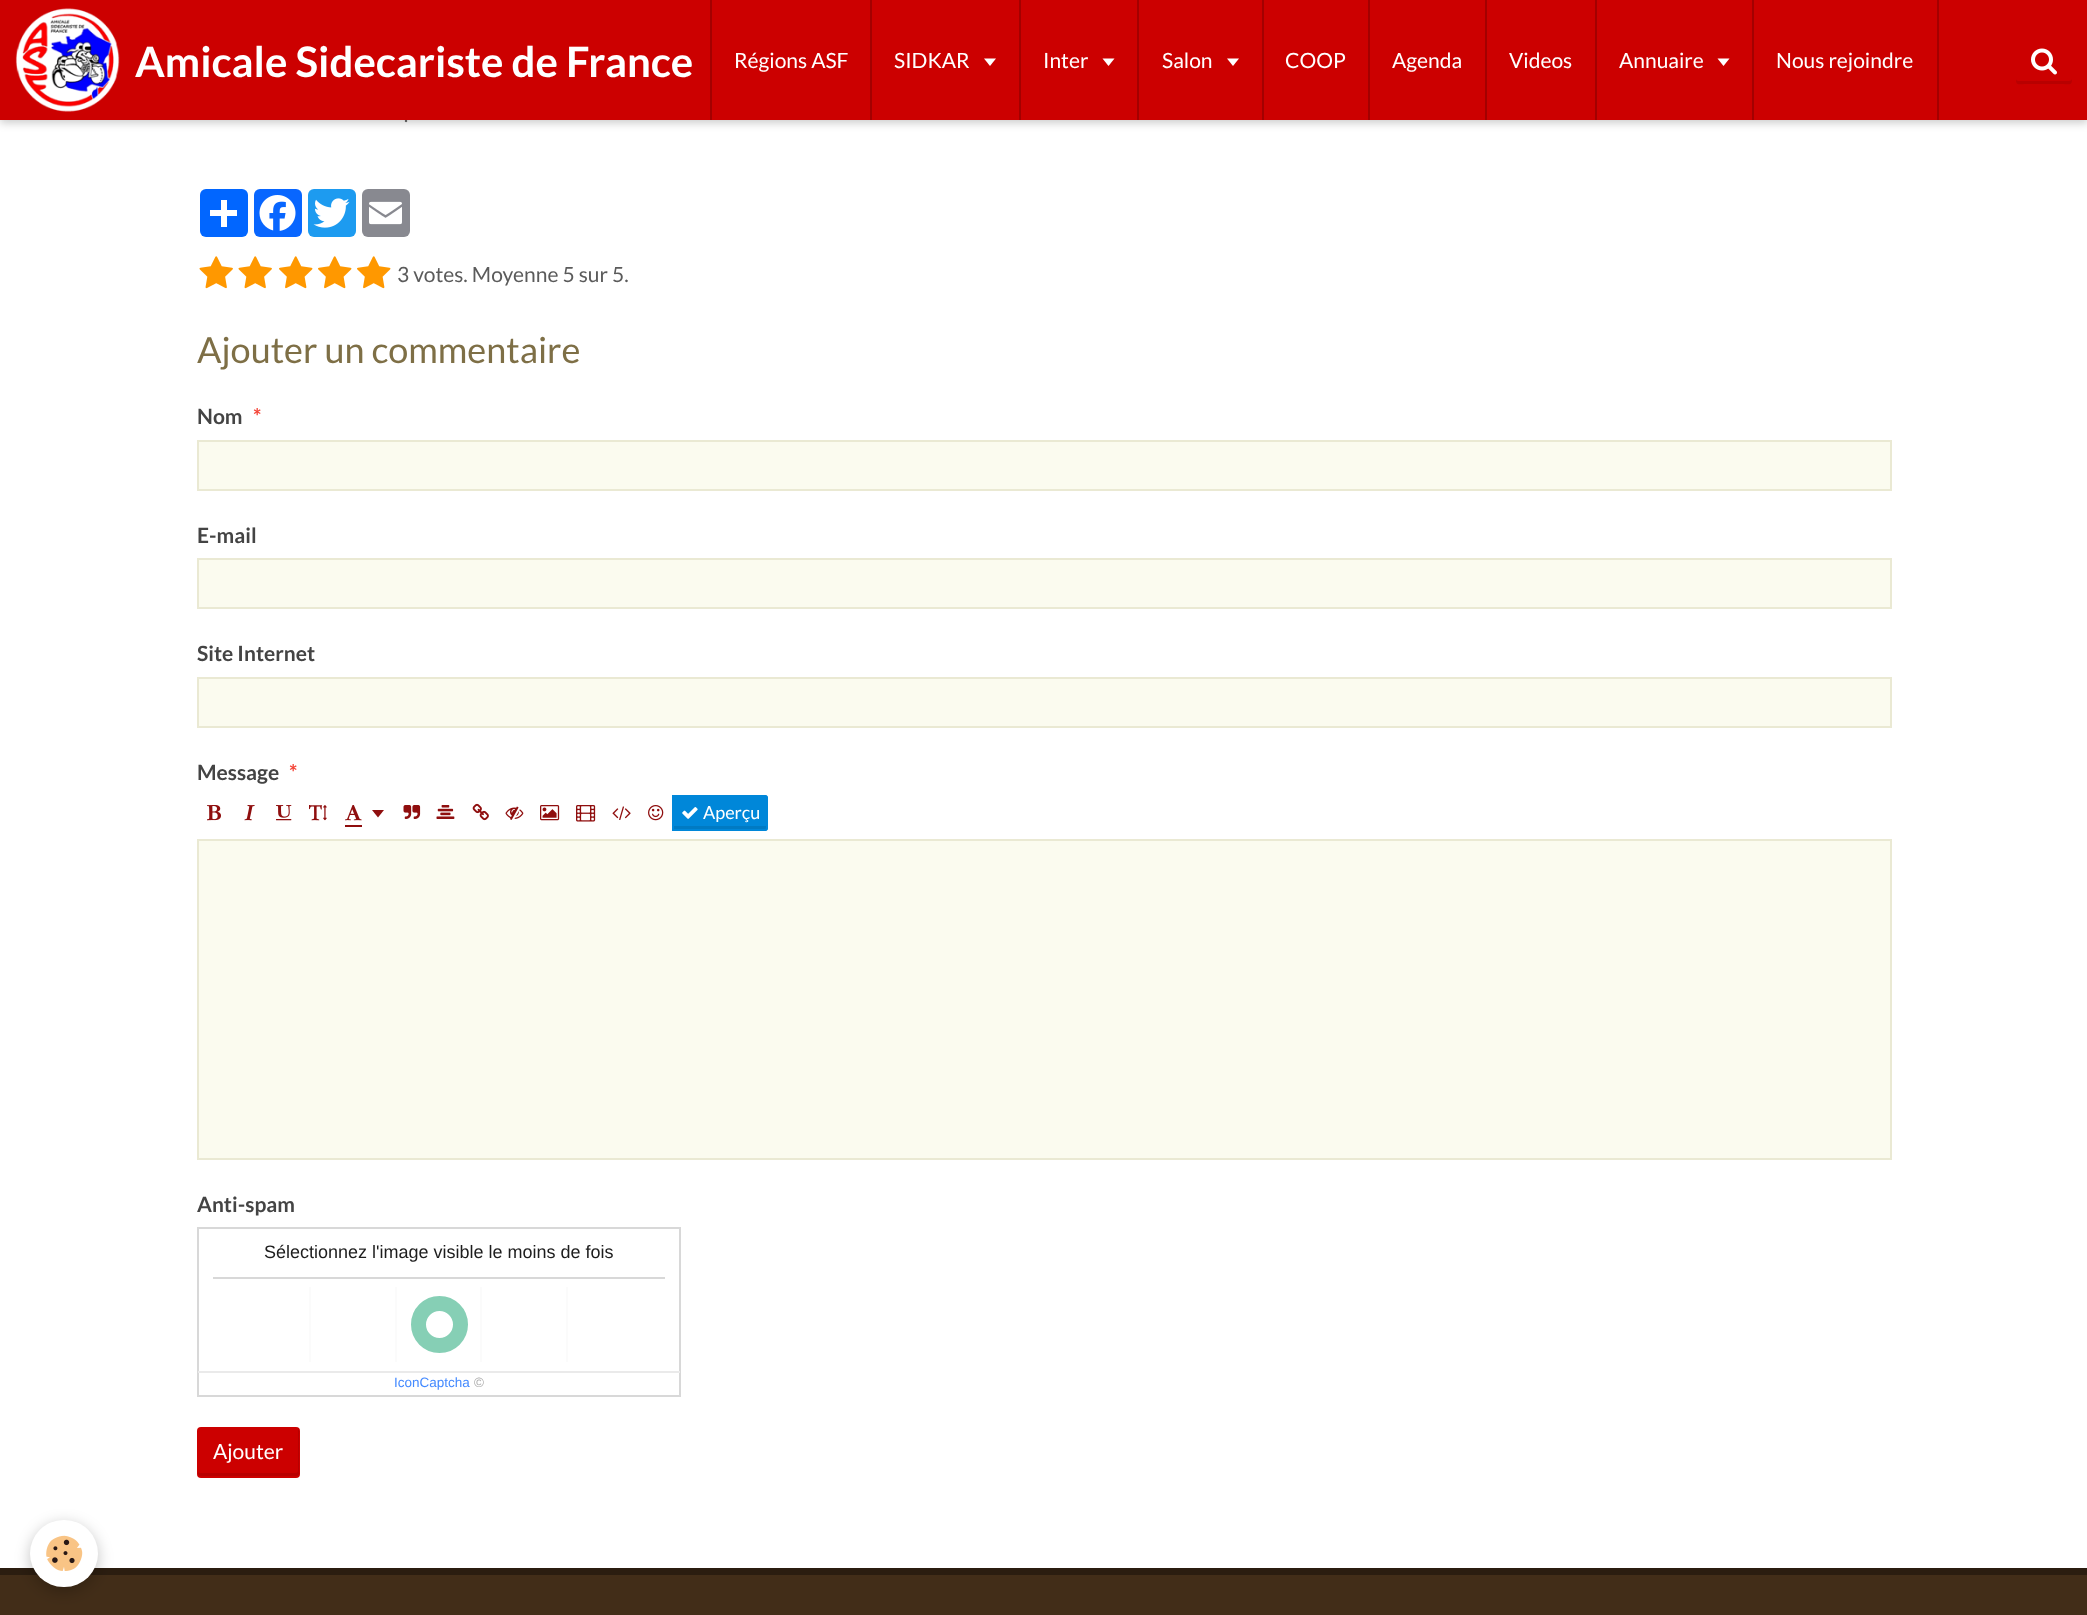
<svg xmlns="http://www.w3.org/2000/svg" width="2087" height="1615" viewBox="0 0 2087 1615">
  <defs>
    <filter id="blur1" x="-50%" y="-200%" width="200%" height="500%"><feGaussianBlur stdDeviation="4"/></filter>
    <filter id="blur2" x="-50%" y="-200%" width="200%" height="500%"><feGaussianBlur stdDeviation="7.5"/></filter>
  </defs>
  <rect width="100%" height="100%" fill="#ffffff"/>
  <rect x="0" y="3" width="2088" height="120" fill="#000000" fill-opacity="0.2" filter="url(#blur1)"/>
  <text x="404" y="122" font-family="Lato" font-size="19" fill="#5b5b5b">.</text>
  <rect x="0" y="0" width="2087" height="120" fill="#cc0000"/>
  <image x="15" y="8" width="105" height="104" href="img1.png"/>
  <text x="135" y="77" font-family="Lato" font-size="42" font-weight="bold" fill="#ffffff">Amicale Sidecariste de France</text>
  <rect x="870" y="0" width="2" height="120" fill="#a30000"/>
  <rect x="710" y="0" width="2" height="120" fill="#a30000"/>
  <text x="734" y="68" font-family="Lato" font-size="21" fill="#ffffff">Régions ASF</text>
  <rect x="1019" y="0" width="2" height="120" fill="#a30000"/>
  <text x="894" y="68" font-family="Lato" font-size="21" fill="#ffffff">SIDKAR</text>
  <path d="M984 58.5H996L990 66Z" fill="#ffffff"/>
  <rect x="1137" y="0" width="2" height="120" fill="#a30000"/>
  <text x="1043" y="68" font-family="Lato" font-size="21" fill="#ffffff">Inter</text>
  <path d="M1102.5 58.5H1114.5L1108.5 66Z" fill="#ffffff"/>
  <rect x="1262" y="0" width="2" height="120" fill="#a30000"/>
  <text x="1162" y="68" font-family="Lato" font-size="21" fill="#ffffff">Salon</text>
  <path d="M1227 58.5H1239L1233 66Z" fill="#ffffff"/>
  <rect x="1368" y="0" width="2" height="120" fill="#a30000"/>
  <text x="1285" y="68" font-family="Lato" font-size="21" fill="#ffffff">COOP</text>
  <rect x="1485" y="0" width="2" height="120" fill="#a30000"/>
  <text x="1392" y="68" font-family="Lato" font-size="21" fill="#ffffff">Agenda</text>
  <rect x="1595" y="0" width="2" height="120" fill="#a30000"/>
  <text x="1509" y="68" font-family="Lato" font-size="21" fill="#ffffff">Videos</text>
  <rect x="1752" y="0" width="2" height="120" fill="#a30000"/>
  <text x="1619" y="68" font-family="Lato" font-size="21" fill="#ffffff">Annuaire</text>
  <path d="M1717.5 58.5H1729.5L1723.5 66Z" fill="#ffffff"/>
  <rect x="1937" y="0" width="2" height="120" fill="#a30000"/>
  <text x="1776" y="68" font-family="Lato" font-size="21" fill="#ffffff">Nous rejoindre</text>
  <path d="M2016 79C2016 86 2018 84 2027 84H2061C2070 84 2072 86 2072 79C2072 80 2070 81 2069 81H2018C2017 81 2016 80 2016 79Z" fill="#b80000"/>
  <image x="2031" y="48" width="26" height="27" href="img2.png"/>
  <rect x="200" y="189" width="48" height="48" rx="6" fill="#0166ff"/>
  <rect x="221" y="200" width="6" height="27" fill="#ffffff"/>
  <rect x="210" y="210" width="27" height="6" fill="#ffffff"/>
  <rect x="254" y="189" width="48" height="48" rx="6" fill="#0866ff"/>
  <image x="259" y="195" width="37" height="36" href="img3.png"/>
  <rect x="308" y="189" width="48" height="48" rx="6" fill="#1d9bf0"/>
  <image x="313" y="198" width="37" height="30" href="img4.png"/>
  <rect x="362" y="189" width="48" height="48" rx="6" fill="#888990"/>
  <image x="369" y="201" width="33" height="24" href="img5.png"/>
  <image x="199" y="256" width="34" height="33" href="img6.png"/>
  <image x="238" y="256" width="34" height="33" href="img6.png"/>
  <image x="279" y="256" width="34" height="33" href="img7.png"/>
  <image x="318" y="256" width="34" height="33" href="img7.png"/>
  <image x="357" y="256" width="34" height="33" href="img7.png"/>
  <text x="397" y="282" font-family="Lato" font-size="21" fill="#5b5b5b">3 votes. Moyenne 5 sur 5.</text>
  <text x="197" y="363" font-family="Lato" font-size="36" fill="#7e6f46">Ajouter un commentaire</text>
  <text x="197" y="424" font-family="Lato" font-size="21" font-weight="bold" fill="#444444">Nom</text>
  <text x="253" y="424" font-family="Lato" font-size="21" font-weight="bold" fill="#f44336">*</text>
  <rect x="198" y="441" width="1693" height="49" fill="#fbfbef" stroke="#eae9d3" stroke-width="2"/>
  <text x="197" y="543" font-family="Lato" font-size="21" font-weight="bold" fill="#444444">E-mail</text>
  <rect x="198" y="559" width="1693" height="49" fill="#fbfbef" stroke="#eae9d3" stroke-width="2"/>
  <text x="197" y="661" font-family="Lato" font-size="21" font-weight="bold" fill="#444444">Site Internet</text>
  <rect x="198" y="678" width="1693" height="49" fill="#fbfbef" stroke="#eae9d3" stroke-width="2"/>
  <text x="197" y="780" font-family="Lato" font-size="21" font-weight="bold" fill="#444444">Message</text>
  <text x="289" y="780" font-family="Lato" font-size="21" font-weight="bold" fill="#f44336">*</text>
  <image x="207" y="805" width="14" height="16" href="img8.png"/>
  <image x="244" y="805" width="11" height="16" href="img9.png"/>
  <image x="276" y="805" width="16" height="16" href="img10.png"/>
  <image x="309" y="805" width="18" height="16" href="img11.png"/>
  <image x="345" y="805" width="17" height="16" href="img12.png"/>
  <rect x="345" y="825" width="17" height="2" fill="#8f0e0e"/>
  <path d="M372 810H384L378 817.5Z" fill="#8f0e0e"/>
  <image x="403" y="805" width="18" height="14" href="img13.png"/>
  <image x="436" y="805" width="19" height="14" href="img14.png"/>
  <image x="472" y="803" width="17" height="18" href="img15.png"/>
  <image x="505" y="806" width="19" height="14" href="img16.png"/>
  <image x="540" y="805" width="20" height="16" href="img17.png"/>
  <image x="576" y="805" width="20" height="17" href="img18.png"/>
  <image x="612" y="806" width="19" height="14" href="img19.png"/>
  <image x="648" y="805" width="16" height="16" href="img20.png"/>
  <path d="M672 795H765C766.5 795 768 796.5 768 798V828C768 829.5 766.5 831 765 831H672Z" fill="#0087d9"/>
  <path d="M674 826V830H766L767 829V818C767 816 768 798 766 797V825C766 826 766 826 765 826Z" fill="#007ac3"/>
  <path d="M673 796H765C766 796 767 797 767 798V828C767 829 766 830 765 830H673Z" fill="none" stroke="#0087d9" stroke-width="2"/>
  <image x="682" y="807" width="16" height="12" href="img21.png"/>
  <text x="703" y="819" font-family="Lato" font-size="18" fill="#ffffff">Aperçu</text>
  <rect x="198" y="840" width="1693" height="319" fill="#fbfbef" stroke="#eae9d3" stroke-width="2"/>
  <text x="197" y="1212" font-family="Lato" font-size="21" font-weight="bold" fill="#444444">Anti-spam</text>
  <rect x="198" y="1228" width="482" height="168" fill="none" stroke="#d8d8d8" stroke-width="2"/>
  <rect x="213" y="1277" width="452" height="2" fill="#d8d8d8"/>
  <text x="264" y="1258" font-family="Liberation Sans" font-size="18" fill="#1d1d1d">Sélectionnez l'image visible le moins de fois</text>
  <rect x="309" y="1287" width="2" height="75" fill="#fbfbfb"/>
  <rect x="395" y="1287" width="2" height="75" fill="#fbfbfb"/>
  <circle cx="439.5" cy="1324.5" r="21" fill="none" stroke="#86cfb5" stroke-width="15"/>
  <rect x="480" y="1287" width="2" height="75" fill="#fbfbfb"/>
  <rect x="566" y="1287" width="2" height="75" fill="#fbfbfb"/>
  <rect x="198" y="1371" width="482" height="2" fill="#eaeaea"/>
  <text x="394" y="1387" font-family="Liberation Sans" font-size="13.5" fill="#448aff">IconCaptcha</text>
  <text x="474" y="1387" font-family="Liberation Sans" font-size="13.5" fill="#a7a7a7">©</text>
  <rect x="197" y="1427" width="103" height="51" rx="4" fill="#cc0000"/>
  <path d="M198 1471V1474C198 1475 199 1476 200 1476H297C298 1476 299 1475 299 1474V1430C299 1429 299 1429 298 1428V1471C298 1472 297 1473 296 1473H200C199 1473 198 1472 198 1471Z" fill="#b80000"/>
  <text x="213" y="1459" font-family="Lato" font-size="21" fill="#ffffff">Ajouter</text>
  <rect x="0" y="1568" width="2087" height="7" fill="#2b1d10"/>
  <rect x="0" y="1575" width="2087" height="40" fill="#422d18"/>
  <rect x="30" y="1524" width="68" height="68" rx="34" fill="#000000" fill-opacity="0.24" filter="url(#blur2)"/>
  <rect x="30" y="1520" width="68" height="67" rx="33.5" fill="#ffffff"/>
  <image x="46" y="1535" width="37" height="36" href="img22.png"/>
</svg>
